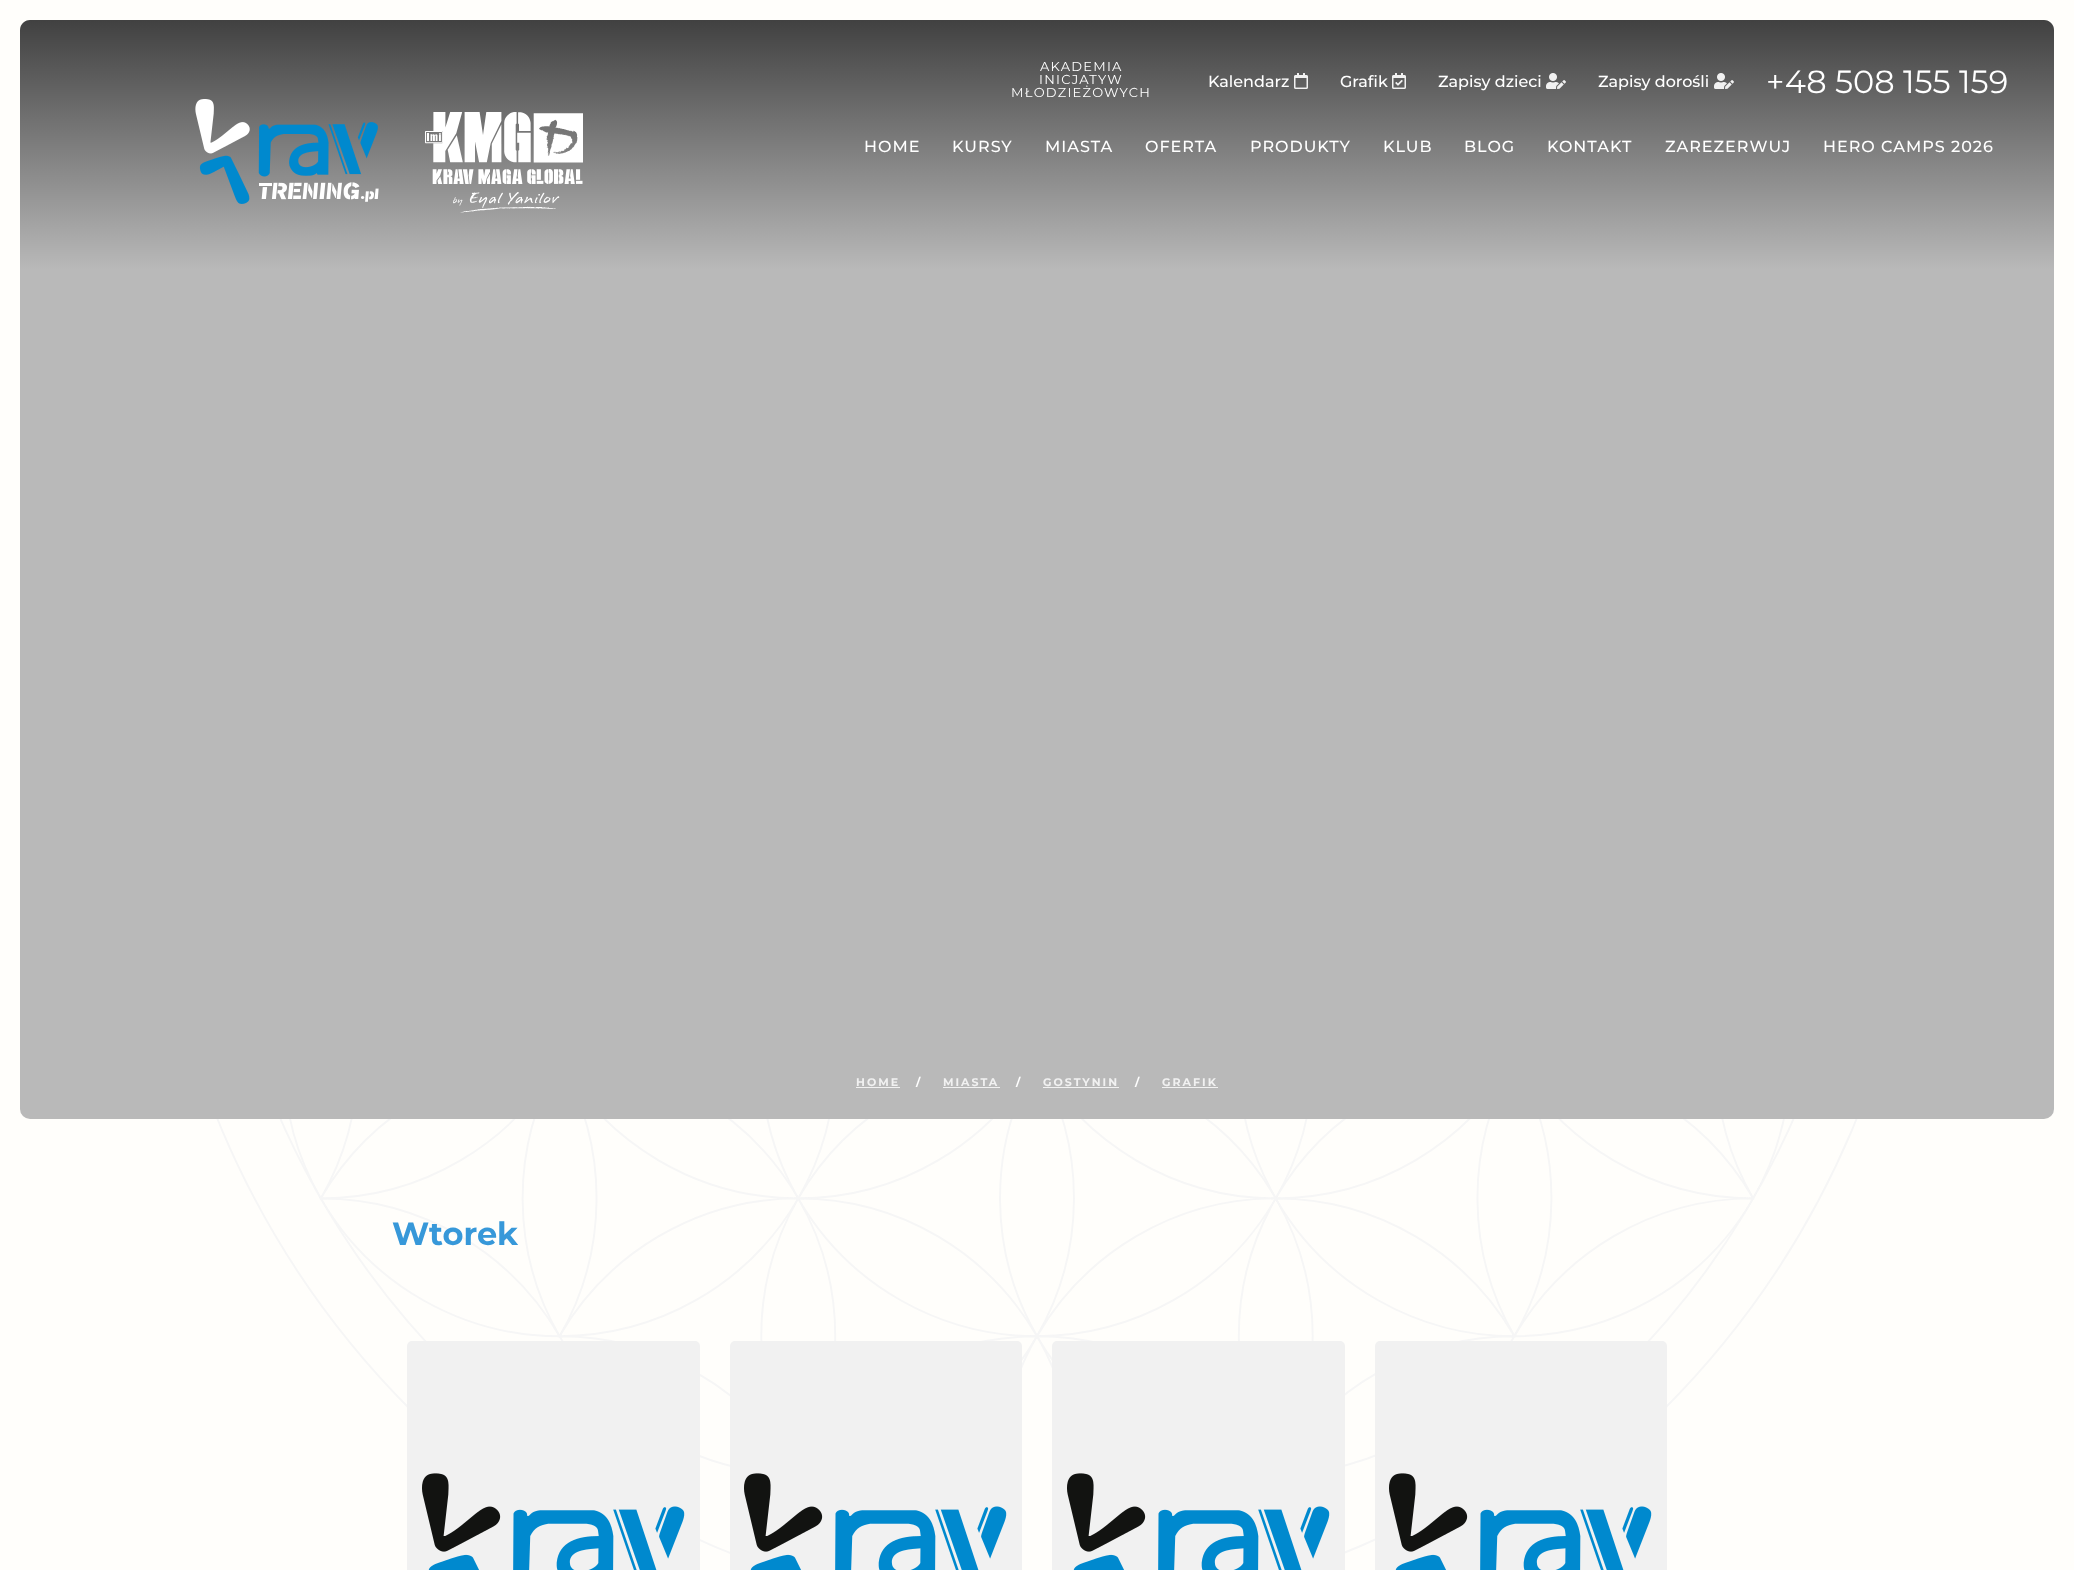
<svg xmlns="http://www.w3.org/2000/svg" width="2074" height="1570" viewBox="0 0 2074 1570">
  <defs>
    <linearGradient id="g1" gradientUnits="userSpaceOnUse" x1="1037" y1="20" x2="1037" y2="270"><stop offset="0" stop-color="#000000" stop-opacity="0.65"/><stop offset="1" stop-color="#000000" stop-opacity="0"/></linearGradient>
  </defs>
  <rect width="100%" height="100%" fill="#fffefb"/>
  <image x="216" y="1119" width="1642" height="435" href="img1.png"/>
  <rect x="20" y="20" width="2034" height="1099" rx="10" fill="#f8f8f8"/>
  <rect x="20" y="20" width="2034" height="1099" rx="10" fill="#292929" fill-opacity="0.3"/>
  <path d="M30 20H2044C2049.5 20 2054 24.5 2054 30V270H20V30C20 24.5 24.5 20 30 20Z" fill="url(#g1)"/>
  <text x="1040" y="71" font-family="Montserrat" font-size="13" letter-spacing="1.25" fill="#ffffff">AKADEMIA</text>
  <text x="1039" y="84" font-family="Montserrat" font-size="13" letter-spacing="1.25" fill="#ffffff">INICJATYW</text>
  <text x="1011" y="97" font-family="Montserrat" font-size="13" letter-spacing="1.25" fill="#ffffff">MŁODZIEŻOWYCH</text>
  <text x="1208" y="87" font-family="Montserrat" font-size="16" font-weight="500" fill="#ffffff">Kalendarz</text>
  <image x="1294" y="73" width="14" height="16" href="img2.png"/>
  <text x="1340" y="87" font-family="Montserrat" font-size="16" font-weight="500" fill="#ffffff">Grafik</text>
  <image x="1392" y="73" width="14" height="16" href="img3.png"/>
  <text x="1438" y="87" font-family="Montserrat" font-size="16" font-weight="500" fill="#ffffff">Zapisy dzieci</text>
  <image x="1546" y="73" width="20" height="16" href="img4.png"/>
  <text x="1598" y="87" font-family="Montserrat" font-size="16" font-weight="500" fill="#ffffff">Zapisy dorośli</text>
  <image x="1714" y="73" width="20" height="16" href="img4.png"/>
  <text x="1766" y="93" font-family="Montserrat" font-size="32" fill="#ffffff">+48 508 155 159</text>
  <image x="195" y="99" width="184" height="105" href="img5.png"/>
  <image x="425" y="112" width="158" height="101" href="img6.png"/>
  <text x="864" y="152" font-family="Montserrat" font-size="16" font-weight="500" letter-spacing="1" fill="#ffffff">HOME</text>
  <text x="952" y="152" font-family="Montserrat" font-size="16" font-weight="500" letter-spacing="1" fill="#ffffff">KURSY</text>
  <text x="1045" y="152" font-family="Montserrat" font-size="16" font-weight="500" letter-spacing="1" fill="#ffffff">MIASTA</text>
  <text x="1145" y="152" font-family="Montserrat" font-size="16" font-weight="500" letter-spacing="1" fill="#ffffff">OFERTA</text>
  <text x="1250" y="152" font-family="Montserrat" font-size="16" font-weight="500" letter-spacing="1" fill="#ffffff">PRODUKTY</text>
  <text x="1383" y="152" font-family="Montserrat" font-size="16" font-weight="500" letter-spacing="1" fill="#ffffff">KLUB</text>
  <text x="1464" y="152" font-family="Montserrat" font-size="16" font-weight="500" letter-spacing="1" fill="#ffffff">BLOG</text>
  <text x="1547" y="152" font-family="Montserrat" font-size="16" font-weight="500" letter-spacing="1" fill="#ffffff">KONTAKT</text>
  <text x="1665" y="152" font-family="Montserrat" font-size="16" font-weight="500" letter-spacing="1" fill="#ffffff">ZAREZERWUJ</text>
  <text x="1823" y="152" font-family="Montserrat" font-size="16" font-weight="500" letter-spacing="1" fill="#ffffff">HERO CAMPS 2026</text>
  <text x="856" y="1086" font-family="Montserrat" font-size="11" font-weight="bold" letter-spacing="2" fill="#f1f1f1">HOME</text>
  <rect x="856" y="1087" width="44" height="1" fill="#f1f1f1"/>
  <text x="916" y="1086" font-family="Montserrat" font-size="11" font-weight="bold" letter-spacing="2" fill="#ffffff">/</text>
  <text x="943" y="1086" font-family="Montserrat" font-size="11" font-weight="bold" letter-spacing="2" fill="#f1f1f1">MIASTA</text>
  <rect x="943" y="1087" width="57" height="1" fill="#f1f1f1"/>
  <text x="1016" y="1086" font-family="Montserrat" font-size="11" font-weight="bold" letter-spacing="2" fill="#ffffff">/</text>
  <text x="1043" y="1086" font-family="Montserrat" font-size="11" font-weight="bold" letter-spacing="2" fill="#f1f1f1">GOSTYNIN</text>
  <rect x="1043" y="1087" width="76" height="1" fill="#f1f1f1"/>
  <text x="1135" y="1086" font-family="Montserrat" font-size="11" font-weight="bold" letter-spacing="2" fill="#ffffff">/</text>
  <text x="1162" y="1086" font-family="Montserrat" font-size="11" font-weight="bold" letter-spacing="2" fill="#f1f1f1">GRAFIK</text>
  <rect x="1162" y="1087" width="56" height="1" fill="#f1f1f1"/>
  <text x="392" y="1245" font-family="Montserrat" font-size="32" font-weight="bold" fill="#3798d9">Wtorek</text>
  <rect x="407" y="1341" width="293" height="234" rx="5" fill="#f1f1f1"/>
  <image x="422" y="1473" width="263" height="97" href="img7.png"/>
  <rect x="730" y="1341" width="292" height="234" rx="5" fill="#f1f1f1"/>
  <image x="744" y="1473" width="263" height="97" href="img7.png"/>
  <rect x="1052" y="1341" width="293" height="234" rx="5" fill="#f1f1f1"/>
  <image x="1067" y="1473" width="263" height="97" href="img7.png"/>
  <rect x="1375" y="1341" width="292" height="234" rx="5" fill="#f1f1f1"/>
  <image x="1389" y="1473" width="263" height="97" href="img7.png"/>
</svg>
